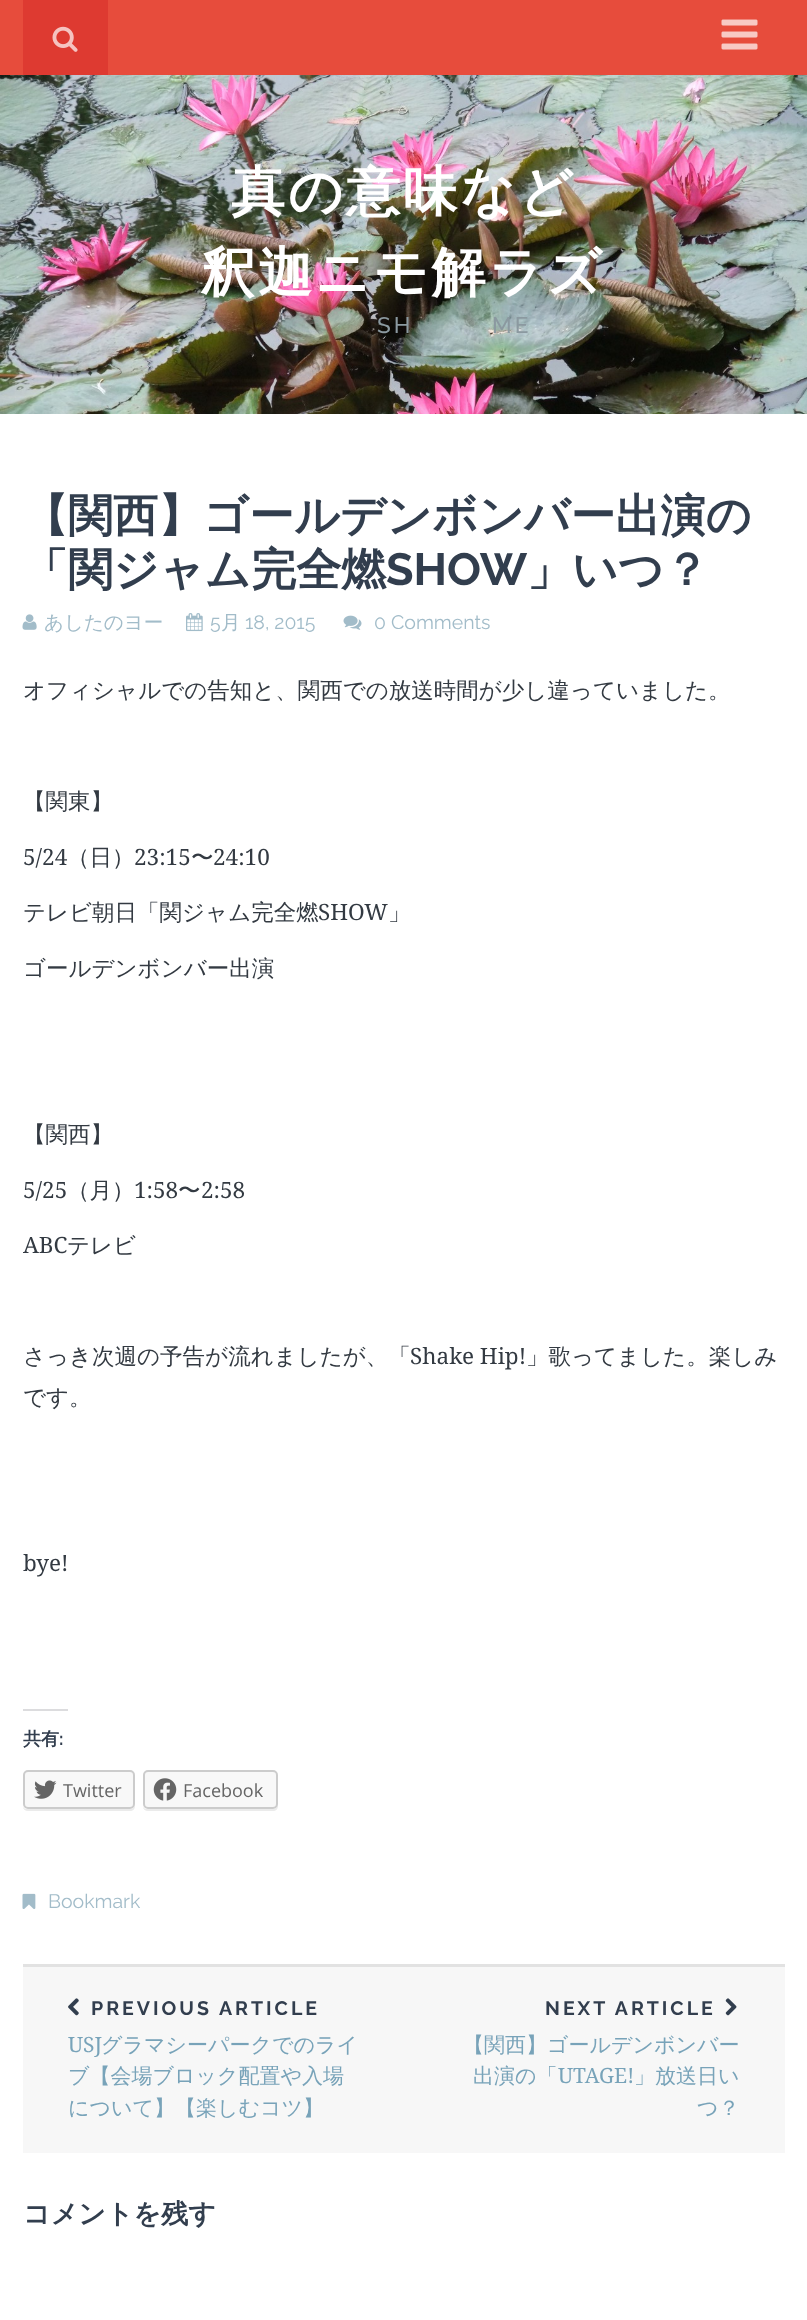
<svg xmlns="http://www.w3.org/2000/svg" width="807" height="2320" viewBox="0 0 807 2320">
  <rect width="100%" height="100%" fill="#ffffff"/>
  <rect x="0" y="0" width="807" height="75" fill="#e74c3c"/>
  <rect x="23" y="0" width="85" height="75" fill="#de3a31"/>
  <image x="52" y="26" width="26" height="26" href="img1.png"/>
  <image x="721" y="19" width="37" height="31" href="img2.png"/>
  <image x="0" y="75" width="807" height="339" href="img3.png"/>
  <text x="231" y="210" font-family="WenQuanYi Zen Hei" font-size="54" font-weight="bold" letter-spacing="3" fill="#ffffff">真の意味など</text>
  <text x="201" y="291" font-family="WenQuanYi Zen Hei" font-size="54" font-weight="bold" letter-spacing="3" fill="#ffffff">釈迦ニモ解ラズ</text>
  <text x="377" y="333" font-family="Raleway" font-size="22.5" font-weight="500" letter-spacing="3" fill="#8b99a0">SH</text>
  <text x="492" y="333" font-family="Raleway" font-size="22.5" font-weight="500" letter-spacing="3" fill="#8b99a0">ME</text>
  <rect x="23" y="1964" width="762" height="3" fill="#e2e2e2"/>
  <text x="23" y="531" font-family="WenQuanYi Zen Hei" font-size="45" font-weight="bold" fill="#323e4e">【関西】ゴールデンボンバー出演の</text>
  <text x="23" y="585" font-family="WenQuanYi Zen Hei" font-size="45" font-weight="bold" fill="#323e4e">「関ジャム完全燃</text>
  <text x="386" y="585" font-family="Raleway" font-size="45" font-weight="bold" fill="#323e4e">SHOW</text>
  <text x="527" y="585" font-family="WenQuanYi Zen Hei" font-size="45" font-weight="bold" fill="#323e4e">」いつ？</text>
  <image x="22" y="614" width="15" height="16" href="img4.png"/>
  <text x="44" y="629" font-family="WenQuanYi Zen Hei" font-size="19.5" font-weight="500" fill="#a2bcc9">あしたのヨー</text>
  <image x="186" y="613" width="17" height="19" href="img5.png"/>
  <text x="210" y="629" font-family="Raleway" font-size="19.5" fill="#a2bcc9">5</text>
  <text x="221" y="629" font-family="WenQuanYi Zen Hei" font-size="19.5" font-weight="500" fill="#a2bcc9">月</text>
  <text x="245" y="629" font-family="Raleway" font-size="19.5" fill="#a2bcc9">18, 2015</text>
  <image x="343" y="615" width="19" height="15" href="img6.png"/>
  <text x="374" y="629" font-family="Raleway" font-size="19.5" fill="#a2bcc9">0 Comments</text>
  <text x="23" y="698" font-family="WenQuanYi Zen Hei" font-size="22.5" font-weight="500" fill="#333a42">オフィシャルでの告知と、関西での放送時間が少し違っていました。</text>
  <text x="23" y="809" font-family="WenQuanYi Zen Hei" font-size="22.5" font-weight="500" fill="#333a42">【関東】</text>
  <text x="23" y="865" font-family="Noto Serif" font-size="22.5" fill="#333a42">5/24</text>
  <text x="67" y="865" font-family="WenQuanYi Zen Hei" font-size="22.5" font-weight="500" fill="#333a42">（日）</text>
  <text x="134" y="865" font-family="Noto Serif" font-size="22.5" fill="#333a42">23:15</text>
  <text x="191" y="865" font-family="WenQuanYi Zen Hei" font-size="22.5" font-weight="500" fill="#333a42">〜</text>
  <text x="213" y="865" font-family="Noto Serif" font-size="22.5" fill="#333a42">24:10</text>
  <text x="23" y="920" font-family="WenQuanYi Zen Hei" font-size="22.5" font-weight="500" fill="#333a42">テレビ朝日「関ジャム完全燃</text>
  <text x="318" y="920" font-family="Noto Serif" font-size="22.5" fill="#333a42">SHOW</text>
  <text x="388" y="920" font-family="WenQuanYi Zen Hei" font-size="22.5" font-weight="500" fill="#333a42">」</text>
  <text x="23" y="976" font-family="WenQuanYi Zen Hei" font-size="22.5" font-weight="500" fill="#333a42">ゴールデンボンバー出演</text>
  <text x="23" y="1142" font-family="WenQuanYi Zen Hei" font-size="22.5" font-weight="500" fill="#333a42">【関西】</text>
  <text x="23" y="1198" font-family="Noto Serif" font-size="22.5" fill="#333a42">5/25</text>
  <text x="67" y="1198" font-family="WenQuanYi Zen Hei" font-size="22.5" font-weight="500" fill="#333a42">（月）</text>
  <text x="134" y="1198" font-family="Noto Serif" font-size="22.5" fill="#333a42">1:58</text>
  <text x="178" y="1198" font-family="WenQuanYi Zen Hei" font-size="22.5" font-weight="500" fill="#333a42">〜</text>
  <text x="201" y="1198" font-family="Noto Serif" font-size="22.5" fill="#333a42">2:58</text>
  <text x="23" y="1253" font-family="Noto Serif" font-size="22.5" fill="#333a42">ABC</text>
  <text x="67" y="1253" font-family="WenQuanYi Zen Hei" font-size="22.5" font-weight="500" fill="#333a42">テレビ</text>
  <text x="23" y="1364" font-family="WenQuanYi Zen Hei" font-size="22.5" font-weight="500" fill="#333a42">さっき次週の予告が流れましたが、「</text>
  <text x="410" y="1364" font-family="Noto Serif" font-size="22.5" fill="#333a42">Shake Hip!</text>
  <text x="526" y="1364" font-family="WenQuanYi Zen Hei" font-size="22.5" font-weight="500" fill="#333a42">」歌ってました。楽しみ</text>
  <text x="23" y="1405" font-family="WenQuanYi Zen Hei" font-size="22.5" font-weight="500" fill="#333a42">です。</text>
  <text x="23" y="1571" font-family="Noto Serif" font-size="22.5" fill="#333a42">bye!</text>
  <rect x="23" y="1709" width="45" height="2" fill="#dcdcde"/>
  <text x="23" y="1745" font-family="WenQuanYi Zen Hei" font-size="18" font-weight="bold" fill="#323e4e">共有</text>
  <text x="59" y="1745" font-family="Raleway" font-size="18" font-weight="bold" fill="#323e4e">:</text>
  <path d="M23 1807C23 1809 25 1811 28 1811H130C133 1811 135 1809 135 1806V1804C135 1807 133 1809 130 1809H27C25 1809 24 1808 23 1807Z" fill="#ebebeb"/>
  <rect x="24" y="1771" width="110" height="37" rx="4" fill="#f8f8f8" stroke="#cccccc" stroke-width="2"/>
  <image x="34" y="1780" width="23" height="19" href="img7.png"/>
  <text x="63" y="1797" font-family="Open Sans" font-size="18" fill="#656565">Twitter</text>
  <path d="M143 1807C143 1809 145 1811 148 1811H273C276 1811 278 1809 278 1806V1777V1775V1804C278 1807 275 1809 273 1809H147C145 1809 144 1808 143 1807Z" fill="#ebebeb"/>
  <rect x="144" y="1771" width="133" height="37" rx="4" fill="#f8f8f8" stroke="#cccccc" stroke-width="2"/>
  <image x="153" y="1778" width="24" height="23" href="img8.png"/>
  <text x="183" y="1797" font-family="Open Sans" font-size="18" fill="#656565">Facebook</text>
  <image x="22" y="1893" width="14" height="16" href="img9.png"/>
  <text x="48" y="1908" font-family="Raleway" font-size="19.5" fill="#a2bcc9">Bookmark</text>
  <rect x="23" y="1967" width="762" height="186" fill="#f7f7f7"/>
  <image x="68" y="1998" width="11" height="18" href="img10.png"/>
  <text x="91" y="2015" font-family="Raleway" font-size="19.5" font-weight="bold" letter-spacing="3" fill="#323e4e">PREVIOUS ARTICLE</text>
  <text x="68" y="2052" font-family="Noto Serif" font-size="21" fill="#78a3b9">USJ</text>
  <text x="101" y="2052" font-family="WenQuanYi Zen Hei" font-size="21" font-weight="500" fill="#78a3b9">グラマシーパークでのライ</text>
  <text x="68" y="2083" font-family="WenQuanYi Zen Hei" font-size="21" font-weight="500" fill="#78a3b9">ブ【会場ブロック配置や入場</text>
  <text x="68" y="2115" font-family="WenQuanYi Zen Hei" font-size="21" font-weight="500" fill="#78a3b9">について】【楽しむコツ】</text>
  <text x="545" y="2015" font-family="Raleway" font-size="19.5" font-weight="bold" letter-spacing="3" fill="#323e4e">NEXT ARTICLE</text>
  <image x="725" y="1998" width="12" height="18" href="img11.png"/>
  <text x="463" y="2052" font-family="WenQuanYi Zen Hei" font-size="21" font-weight="500" fill="#78a3b9">【関西】ゴールデンボンバー</text>
  <text x="473" y="2083" font-family="WenQuanYi Zen Hei" font-size="21" font-weight="500" fill="#78a3b9">出演の「</text>
  <text x="558" y="2083" font-family="Noto Serif" font-size="21" fill="#78a3b9">UTAGE!</text>
  <text x="634" y="2083" font-family="WenQuanYi Zen Hei" font-size="21" font-weight="500" fill="#78a3b9">」放送日い</text>
  <text x="697" y="2115" font-family="WenQuanYi Zen Hei" font-size="21" font-weight="500" fill="#78a3b9">つ？</text>
  <text x="23" y="2223" font-family="WenQuanYi Zen Hei" font-size="27" font-weight="bold" fill="#323e4e">コメントを残す</text>
</svg>
